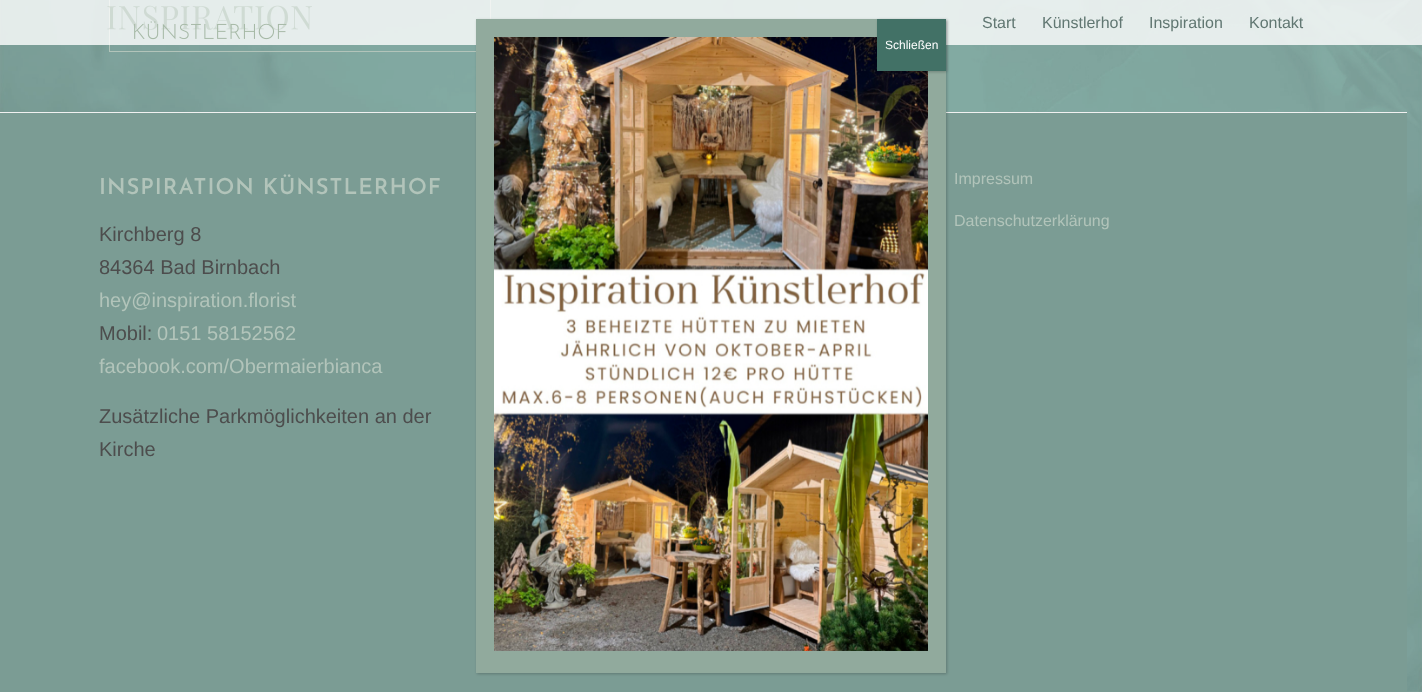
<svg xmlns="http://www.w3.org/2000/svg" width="1422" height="692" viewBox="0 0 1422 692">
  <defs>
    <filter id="blur1" x="-50%" y="-200%" width="200%" height="500%"><feGaussianBlur stdDeviation="1.5"/></filter>
  </defs>
  <rect width="100%" height="100%" fill="#ffffff"/>
  <image x="0" y="0" width="1422" height="692" href="img1.png"/>
  <rect x="109.5" y="-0.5" width="381" height="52" fill="none" stroke="#b2c4ba"/>
  <rect x="0" y="0" width="1422" height="45" fill="#ffffff" fill-opacity="0.8"/>
  <image x="107" y="5" width="205" height="35" href="img2.png"/>
  <text x="982" y="28" font-family="Liberation Sans" font-size="16" fill="#617772">Start</text>
  <text x="1042" y="28" font-family="Liberation Sans" font-size="16" fill="#617772">Künstlerhof</text>
  <text x="1149" y="28" font-family="Liberation Sans" font-size="16" fill="#617772">Inspiration</text>
  <text x="1249" y="28" font-family="Liberation Sans" font-size="16" fill="#617772">Kontakt</text>
  <rect x="0" y="113" width="1407" height="579" fill="#7b9c94"/>
  <rect x="0" y="112" width="1407" height="1" fill="#f1f1f1"/>
  <text x="99" y="194" font-family="Josefin Sans" font-size="22" font-weight="600" letter-spacing="1" fill="#b2c4ba">INSPIRATION KÜNSTLERHOF</text>
  <text x="99" y="241" font-family="Liberation Sans" font-size="20" fill="#4d4d4d">Kirchberg 8</text>
  <text x="99" y="274" font-family="Liberation Sans" font-size="20" fill="#4d4d4d">84364 Bad Birnbach</text>
  <text x="99" y="307" font-family="Liberation Sans" font-size="20" fill="#b2c4ba">hey@inspiration.florist</text>
  <text x="99" y="340" font-family="Liberation Sans" font-size="20" fill="#4d4d4d">Mobil:</text>
  <text x="157" y="340" font-family="Liberation Sans" font-size="20" fill="#b2c4ba">0151 58152562</text>
  <text x="99" y="373" font-family="Liberation Sans" font-size="20" fill="#b2c4ba">facebook.com/Obermaierbianca</text>
  <text x="99" y="423" font-family="Liberation Sans" font-size="20" fill="#4d4d4d">Zusätzliche Parkmöglichkeiten an der</text>
  <text x="99" y="456" font-family="Liberation Sans" font-size="20" fill="#4d4d4d">Kirche</text>
  <text x="954" y="184" font-family="Liberation Sans" font-size="16" fill="#b2c4ba">Impressum</text>
  <text x="954" y="226" font-family="Liberation Sans" font-size="16" fill="#b2c4ba">Datenschutzerklärung</text>
  <rect x="477" y="20" width="470" height="654" fill="#020202" fill-opacity="0.23" filter="url(#blur1)"/>
  <rect x="476" y="19" width="470" height="654" fill="#91aa9d"/>
  <image x="494" y="37" width="434" height="614" href="img3.png"/>
  <rect x="878" y="20" width="69" height="52" fill="#020202" fill-opacity="0.23" filter="url(#blur1)"/>
  <rect x="877" y="19" width="69" height="52" fill="#427166"/>
  <text x="885" y="49" font-family="Liberation Sans" font-size="12" fill="#ffffff">Schließen</text>
</svg>
